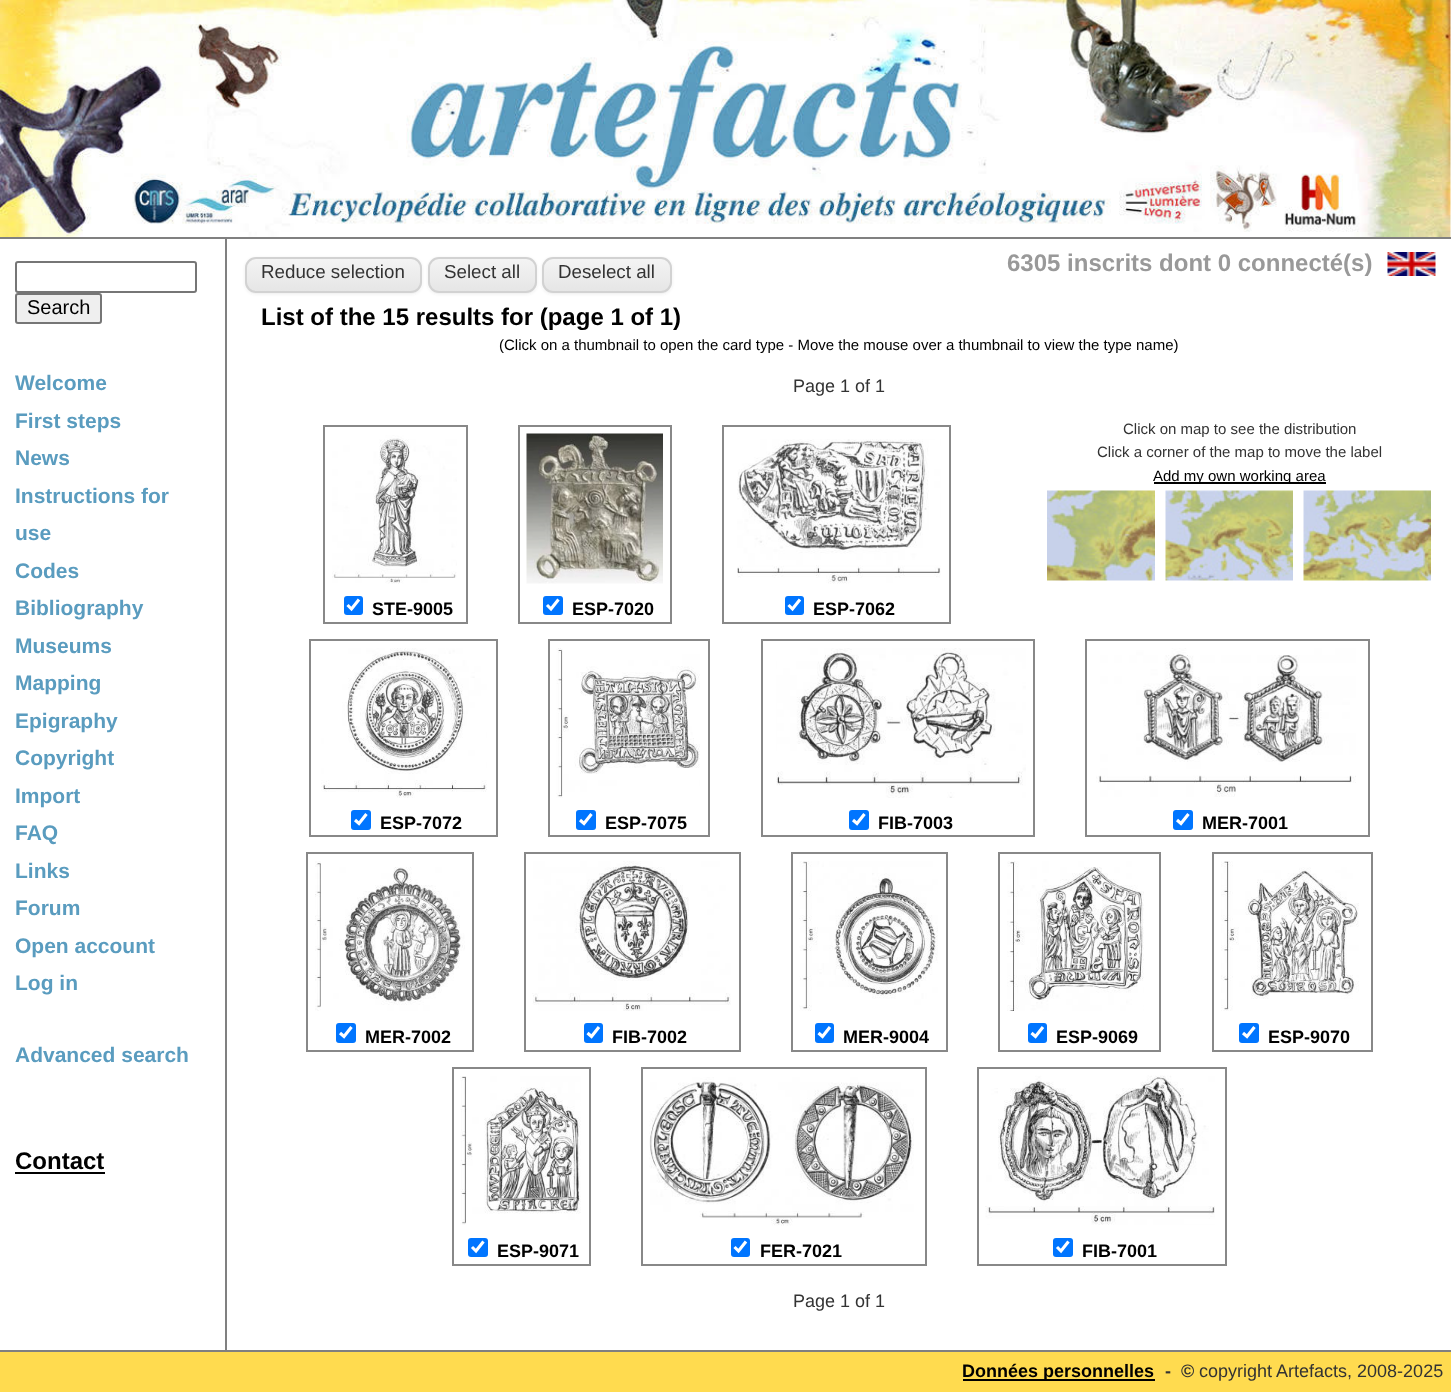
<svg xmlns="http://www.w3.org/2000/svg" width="1451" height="1392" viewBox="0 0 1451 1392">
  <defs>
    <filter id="blur1" x="-50%" y="-200%" width="200%" height="500%"><feGaussianBlur stdDeviation="1.5"/></filter>
    <clipPath id="clip1"><rect x="245" y="257" width="177" height="36" rx="11"/></clipPath>
    <linearGradient id="g1" gradientUnits="userSpaceOnUse" x1="333" y1="258" x2="333" y2="291"><stop offset="0" stop-color="#f4f4f4"/><stop offset="1" stop-color="#e6e6e6"/></linearGradient>
    <clipPath id="clip2"><rect x="428" y="257" width="109" height="36" rx="11"/></clipPath>
    <linearGradient id="g2" gradientUnits="userSpaceOnUse" x1="482" y1="258" x2="482" y2="291"><stop offset="0" stop-color="#f4f4f4"/><stop offset="1" stop-color="#e6e6e6"/></linearGradient>
    <clipPath id="clip3"><rect x="542" y="257" width="130" height="36" rx="11"/></clipPath>
    <linearGradient id="g3" gradientUnits="userSpaceOnUse" x1="607" y1="258" x2="607" y2="291"><stop offset="0" stop-color="#f4f4f4"/><stop offset="1" stop-color="#e6e6e6"/></linearGradient>
  </defs>
  <rect width="100%" height="100%" fill="#ffffff"/>
  <rect x="0" y="237" width="1451" height="2" fill="#808080"/>
  <image x="0" y="0" width="1451" height="237" href="img1.png"/>
  <rect x="16" y="262" width="180" height="30" rx="2" fill="none" stroke="#767676" stroke-width="2"/>
  <rect x="16" y="294" width="85" height="29" rx="2" fill="#efefef" stroke="#767676" stroke-width="2"/>
  <text x="27" y="314" font-family="Liberation Sans" font-size="20" fill="#000000">Search</text>
  <text x="15" y="390" font-family="Liberation Sans" font-size="21" font-weight="bold" fill="#5a9cbf">Welcome</text>
  <text x="15" y="428" font-family="Liberation Sans" font-size="21" font-weight="bold" fill="#5a9cbf">First steps</text>
  <text x="15" y="465" font-family="Liberation Sans" font-size="21" font-weight="bold" fill="#5a9cbf">News</text>
  <text x="15" y="503" font-family="Liberation Sans" font-size="21" font-weight="bold" fill="#5a9cbf">Instructions for</text>
  <text x="15" y="540" font-family="Liberation Sans" font-size="21" font-weight="bold" fill="#5a9cbf">use</text>
  <text x="15" y="578" font-family="Liberation Sans" font-size="21" font-weight="bold" fill="#5a9cbf">Codes</text>
  <text x="15" y="615" font-family="Liberation Sans" font-size="21" font-weight="bold" fill="#5a9cbf">Bibliography</text>
  <text x="15" y="653" font-family="Liberation Sans" font-size="21" font-weight="bold" fill="#5a9cbf">Museums</text>
  <text x="15" y="690" font-family="Liberation Sans" font-size="21" font-weight="bold" fill="#5a9cbf">Mapping</text>
  <text x="15" y="728" font-family="Liberation Sans" font-size="21" font-weight="bold" fill="#5a9cbf">Epigraphy</text>
  <text x="15" y="765" font-family="Liberation Sans" font-size="21" font-weight="bold" fill="#5a9cbf">Copyright</text>
  <text x="15" y="803" font-family="Liberation Sans" font-size="21" font-weight="bold" fill="#5a9cbf">Import</text>
  <text x="15" y="840" font-family="Liberation Sans" font-size="21" font-weight="bold" fill="#5a9cbf">FAQ</text>
  <text x="15" y="878" font-family="Liberation Sans" font-size="21" font-weight="bold" fill="#5a9cbf">Links</text>
  <text x="15" y="915" font-family="Liberation Sans" font-size="21" font-weight="bold" fill="#5a9cbf">Forum</text>
  <text x="15" y="953" font-family="Liberation Sans" font-size="21" font-weight="bold" fill="#5a9cbf">Open account</text>
  <text x="15" y="990" font-family="Liberation Sans" font-size="21" font-weight="bold" fill="#5a9cbf">Log in</text>
  <text x="15" y="1062" font-family="Liberation Sans" font-size="21" font-weight="bold" fill="#5a9cbf">Advanced search</text>
  <text x="15" y="1169" font-family="Liberation Sans" font-size="24" font-weight="bold" fill="#000000">Contact</text>
  <rect x="15" y="1172" width="90" height="2" fill="#000000"/>
  <rect x="225" y="239" width="2" height="1111" fill="#808080"/>
  <rect x="245" y="258" width="177" height="36" rx="11" fill="#404040" fill-opacity="0.1" filter="url(#blur1)"/>
  <g clip-path="url(#clip1)">
    <rect x="245" y="258" width="177" height="33" fill="url(#g1)"/>
  </g>
  <rect x="246" y="258" width="175" height="34" rx="10" fill="none" stroke="#d2d2d2" stroke-width="2"/>
  <text x="261" y="278" font-family="Liberation Sans" font-size="18.75" fill="#333333">Reduce selection</text>
  <rect x="428" y="258" width="109" height="36" rx="11" fill="#404040" fill-opacity="0.1" filter="url(#blur1)"/>
  <g clip-path="url(#clip2)">
    <rect x="428" y="258" width="109" height="33" fill="url(#g2)"/>
  </g>
  <rect x="429" y="258" width="107" height="34" rx="10" fill="none" stroke="#d2d2d2" stroke-width="2"/>
  <text x="444" y="278" font-family="Liberation Sans" font-size="18.75" fill="#333333">Select all</text>
  <rect x="542" y="258" width="130" height="36" rx="11" fill="#404040" fill-opacity="0.1" filter="url(#blur1)"/>
  <g clip-path="url(#clip3)">
    <rect x="542" y="258" width="130" height="33" fill="url(#g3)"/>
  </g>
  <rect x="543" y="258" width="128" height="34" rx="10" fill="none" stroke="#d2d2d2" stroke-width="2"/>
  <text x="558" y="278" font-family="Liberation Sans" font-size="18.75" fill="#333333">Deselect all</text>
  <text x="1007" y="271" font-family="Liberation Sans" font-size="24" font-weight="bold" fill="#999999">6305 inscrits dont 0 connecté(s)</text>
  <image x="1387" y="252" width="49" height="24" href="img2.png"/>
  <text x="261" y="325" font-family="Liberation Sans" font-size="24" font-weight="bold" fill="#000000">List of the 15 results for (page 1 of 1)</text>
  <text x="499" y="350" font-family="Liberation Sans" font-size="15" fill="#000000">(Click on a thumbnail to open the card type - Move the mouse over a thumbnail to view the type name)</text>
  <text x="793" y="392" font-family="Liberation Sans" font-size="18" fill="#333333">Page 1 of 1</text>
  <text x="1123" y="434" font-family="Liberation Sans" font-size="15" fill="#333333">Click on map to see the distribution</text>
  <text x="1097" y="457" font-family="Liberation Sans" font-size="15" fill="#333333">Click a corner of the map to move the label</text>
  <rect x="1154" y="482" width="172" height="2" fill="#000000"/>
  <text x="1153" y="481" font-family="Liberation Sans" font-size="15" fill="#000000">Add my own working area</text>
  <image x="1047" y="490" width="108" height="91" href="img3.png"/>
  <image x="1165" y="490" width="128" height="91" href="img4.png"/>
  <image x="1303" y="490" width="128" height="91" href="img5.png"/>
  <rect x="324" y="426" width="143" height="197" fill="none" stroke="#888888" stroke-width="2"/>
  <image x="332" y="435" width="125" height="149" href="img6.png"/>
  <rect x="344" y="596" width="19" height="19" rx="3" fill="#0075ff"/>
  <path d="M347.5 605L351.5 609L359 599.5" fill="none" stroke="#ffffff" stroke-width="3.1"/>
  <text x="372" y="615" font-family="Liberation Sans" font-size="18" font-weight="bold" fill="#000000">STE-9005</text>
  <rect x="519" y="426" width="152" height="197" fill="none" stroke="#888888" stroke-width="2"/>
  <image x="526" y="433" width="137" height="151" href="img7.png"/>
  <rect x="543" y="596" width="20" height="19" rx="3" fill="#0075ff"/>
  <path d="M547 605L551 609L558.5 599.5" fill="none" stroke="#ffffff" stroke-width="3.1"/>
  <text x="572" y="615" font-family="Liberation Sans" font-size="18" font-weight="bold" fill="#000000">ESP-7020</text>
  <rect x="723" y="426" width="227" height="197" fill="none" stroke="#888888" stroke-width="2"/>
  <image x="737" y="439" width="204" height="145" href="img8.png"/>
  <rect x="785" y="596" width="19" height="19" rx="3" fill="#0075ff"/>
  <path d="M788.5 605L792.5 609L800 599.5" fill="none" stroke="#ffffff" stroke-width="3.1"/>
  <text x="813" y="615" font-family="Liberation Sans" font-size="18" font-weight="bold" fill="#000000">ESP-7062</text>
  <rect x="310" y="640" width="187" height="196" fill="none" stroke="#888888" stroke-width="2"/>
  <image x="321" y="648" width="166" height="150" href="img9.png"/>
  <rect x="351" y="810" width="20" height="20" rx="3" fill="#0075ff"/>
  <path d="M355 820L359 823.5L366.5 814" fill="none" stroke="#ffffff" stroke-width="3.1"/>
  <text x="380" y="829" font-family="Liberation Sans" font-size="18" font-weight="bold" fill="#000000">ESP-7072</text>
  <rect x="549" y="640" width="160" height="196" fill="none" stroke="#888888" stroke-width="2"/>
  <image x="556" y="648" width="144" height="150" href="img10.png"/>
  <rect x="576" y="810" width="20" height="20" rx="3" fill="#0075ff"/>
  <path d="M580 820L584 823.5L591.5 814" fill="none" stroke="#ffffff" stroke-width="3.1"/>
  <text x="605" y="829" font-family="Liberation Sans" font-size="18" font-weight="bold" fill="#000000">ESP-7075</text>
  <rect x="762" y="640" width="272" height="196" fill="none" stroke="#888888" stroke-width="2"/>
  <image x="776" y="648" width="250" height="150" href="img11.png"/>
  <rect x="849" y="810" width="20" height="20" rx="3" fill="#0075ff"/>
  <path d="M853 820L857 823.5L864.5 814" fill="none" stroke="#ffffff" stroke-width="3.1"/>
  <text x="878" y="829" font-family="Liberation Sans" font-size="18" font-weight="bold" fill="#000000">FIB-7003</text>
  <rect x="1086" y="640" width="283" height="196" fill="none" stroke="#888888" stroke-width="2"/>
  <image x="1096" y="648" width="260" height="149" href="img12.png"/>
  <rect x="1173" y="810" width="20" height="20" rx="3" fill="#0075ff"/>
  <path d="M1177 820L1181 823.5L1188.5 814" fill="none" stroke="#ffffff" stroke-width="3.1"/>
  <text x="1202" y="829" font-family="Liberation Sans" font-size="18" font-weight="bold" fill="#000000">MER-7001</text>
  <rect x="307" y="853" width="166" height="198" fill="none" stroke="#888888" stroke-width="2"/>
  <image x="315" y="861" width="150" height="150" href="img13.png"/>
  <rect x="336" y="1023" width="20" height="20" rx="3" fill="#0075ff"/>
  <path d="M340 1033L344 1036.5L351.5 1027" fill="none" stroke="#ffffff" stroke-width="3.1"/>
  <text x="365" y="1043" font-family="Liberation Sans" font-size="18" font-weight="bold" fill="#000000">MER-7002</text>
  <rect x="525" y="853" width="215" height="198" fill="none" stroke="#888888" stroke-width="2"/>
  <image x="532" y="861" width="199" height="150" href="img14.png"/>
  <rect x="584" y="1023" width="19" height="20" rx="3" fill="#0075ff"/>
  <path d="M587.5 1033L591.5 1036.5L599 1027" fill="none" stroke="#ffffff" stroke-width="3.1"/>
  <text x="612" y="1043" font-family="Liberation Sans" font-size="18" font-weight="bold" fill="#000000">FIB-7002</text>
  <rect x="792" y="853" width="155" height="198" fill="none" stroke="#888888" stroke-width="2"/>
  <image x="799" y="861" width="139" height="150" href="img15.png"/>
  <rect x="815" y="1023" width="19" height="20" rx="3" fill="#0075ff"/>
  <path d="M818.5 1033L822.5 1036.5L830 1027" fill="none" stroke="#ffffff" stroke-width="3.1"/>
  <text x="843" y="1043" font-family="Liberation Sans" font-size="18" font-weight="bold" fill="#000000">MER-9004</text>
  <rect x="999" y="853" width="161" height="198" fill="none" stroke="#888888" stroke-width="2"/>
  <image x="1007" y="861" width="137" height="150" href="img16.png"/>
  <rect x="1028" y="1023" width="19" height="20" rx="3" fill="#0075ff"/>
  <path d="M1031.5 1033L1035.5 1036.5L1043 1027" fill="none" stroke="#ffffff" stroke-width="3.1"/>
  <text x="1056" y="1043" font-family="Liberation Sans" font-size="18" font-weight="bold" fill="#000000">ESP-9069</text>
  <rect x="1213" y="853" width="159" height="198" fill="none" stroke="#888888" stroke-width="2"/>
  <image x="1221" y="861" width="138" height="150" href="img17.png"/>
  <rect x="1239" y="1023" width="20" height="20" rx="3" fill="#0075ff"/>
  <path d="M1243 1033L1247 1036.5L1254.5 1027" fill="none" stroke="#ffffff" stroke-width="3.1"/>
  <text x="1268" y="1043" font-family="Liberation Sans" font-size="18" font-weight="bold" fill="#000000">ESP-9070</text>
  <rect x="453" y="1068" width="137" height="197" fill="none" stroke="#888888" stroke-width="2"/>
  <image x="460" y="1076" width="121" height="149" href="img18.png"/>
  <rect x="468" y="1238" width="20" height="19" rx="3" fill="#0075ff"/>
  <path d="M472 1247L476 1251L483.5 1241.5" fill="none" stroke="#ffffff" stroke-width="3.1"/>
  <text x="497" y="1257" font-family="Liberation Sans" font-size="18" font-weight="bold" fill="#000000">ESP-9071</text>
  <rect x="642" y="1068" width="284" height="197" fill="none" stroke="#888888" stroke-width="2"/>
  <image x="649" y="1077" width="265" height="149" href="img19.png"/>
  <rect x="731" y="1238" width="19" height="19" rx="3" fill="#0075ff"/>
  <path d="M734.5 1247L738.5 1251L746 1241.5" fill="none" stroke="#ffffff" stroke-width="3.1"/>
  <text x="760" y="1257" font-family="Liberation Sans" font-size="18" font-weight="bold" fill="#000000">FER-7021</text>
  <rect x="978" y="1068" width="248" height="197" fill="none" stroke="#888888" stroke-width="2"/>
  <image x="985" y="1075" width="230" height="150" href="img20.png"/>
  <rect x="1053" y="1238" width="20" height="19" rx="3" fill="#0075ff"/>
  <path d="M1057 1247L1061 1251L1068.5 1241.5" fill="none" stroke="#ffffff" stroke-width="3.1"/>
  <text x="1082" y="1257" font-family="Liberation Sans" font-size="18" font-weight="bold" fill="#000000">FIB-7001</text>
  <text x="793" y="1307" font-family="Liberation Sans" font-size="18" fill="#333333">Page 1 of 1</text>
  <rect x="0" y="1352" width="1451" height="40" fill="#ffdb4f"/>
  <rect x="0" y="1350" width="1451" height="2" fill="#808080"/>
  <rect x="963" y="1379" width="192" height="2" fill="#000000"/>
  <text x="962" y="1377" font-family="Liberation Sans" font-size="18" font-weight="bold" fill="#000000">Données personnelles</text>
  <text x="1165" y="1377" font-family="Liberation Sans" font-size="18" font-weight="bold" fill="#333333" xml:space="preserve">-  ©</text>
  <text x="1199" y="1377" font-family="Liberation Sans" font-size="18" fill="#333333">copyright Artefacts, 2008-2025</text>
</svg>
